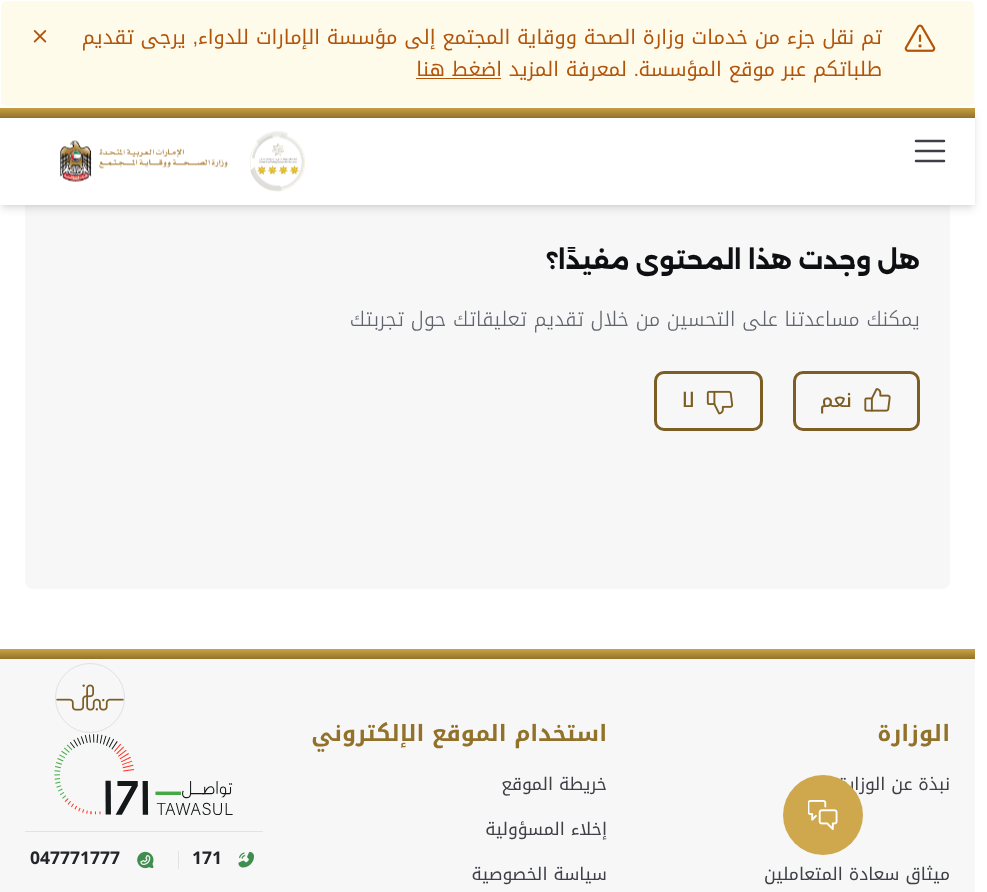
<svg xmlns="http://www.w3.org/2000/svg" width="987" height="892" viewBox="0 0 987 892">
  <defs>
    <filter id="blur1" x="-50%" y="-200%" width="200%" height="500%"><feGaussianBlur stdDeviation="2.5"/></filter>
    <filter id="blur2" x="-50%" y="-200%" width="200%" height="500%"><feGaussianBlur stdDeviation="4"/></filter>
    <linearGradient id="g1" gradientUnits="userSpaceOnUse" x1="488" y1="107" x2="488" y2="118"><stop offset="0" stop-color="#cba344"/><stop offset="1" stop-color="#92722a"/></linearGradient>
    <linearGradient id="g2" gradientUnits="userSpaceOnUse" x1="488" y1="649" x2="488" y2="659"><stop offset="0" stop-color="#cba344"/><stop offset="1" stop-color="#92722a"/></linearGradient>
  </defs>
  <rect width="100%" height="100%" fill="#ffffff"/>
  <rect x="1" y="1" width="973" height="105" rx="5" fill="#fffbeb"/>
  <image x="904" y="24" width="32" height="28" href="img1.png"/>
  <text x="882" y="44" font-family="Noto Kufi Arabic" font-size="20" direction="rtl" fill="#b2550b">تم نقل جزء من خدمات وزارة الصحة ووقاية المجتمع إلى مؤسسة الإمارات للدواء</text>
  <text x="198" y="44" font-family="Liberation Sans" font-size="20" direction="rtl" fill="#b2550b">,</text>
  <text x="186" y="44" font-family="Noto Kufi Arabic" font-size="20" direction="rtl" fill="#b2550b">يرجى تقديم</text>
  <text x="882" y="76" font-family="Noto Kufi Arabic" font-size="20" direction="rtl" fill="#b2550b">طلباتكم عبر موقع المؤسسة</text>
  <text x="639" y="76" font-family="Liberation Sans" font-size="20" direction="rtl" fill="#b2550b">.</text>
  <text x="627" y="76" font-family="Noto Kufi Arabic" font-size="20" direction="rtl" fill="#b2550b">لمعرفة المزيد</text>
  <text x="502" y="76" font-family="Noto Kufi Arabic" font-size="20" direction="rtl" fill="#b2550b">اضغط هنا</text>
  <rect x="416" y="78" width="85" height="1" fill="#b2550b"/>
  <image x="33" y="30" width="14" height="13" href="img2.png"/>
  <rect x="25" y="196" width="925" height="393" rx="8" fill="#f7f7f7"/>
  <rect x="3" y="113" width="970" height="92" fill="#000000" fill-opacity="0.1" filter="url(#blur1)"/>
  <rect x="1" y="114" width="973" height="95" fill="#000000" fill-opacity="0.1" filter="url(#blur2)"/>
  <rect x="0" y="108" width="975" height="10" fill="url(#g1)"/>
  <rect x="0" y="118" width="975" height="87" fill="#ffffff"/>
  <path d="M916 151H944M916 141H944M916 161H944" fill="none" stroke="#3e4046" stroke-width="2.5" stroke-linecap="round" stroke-linejoin="round"/>
  <image x="250" y="131" width="55" height="61" href="img3.png"/>
  <image x="60" y="140" width="168" height="42" href="img4.png"/>
  <text x="920" y="269" font-family="Alexandria" font-size="25" font-weight="bold" direction="rtl" fill="#0e0f12">هل وجدت هذا المحتوى مفيدًا؟</text>
  <text x="920" y="326" font-family="Noto Kufi Arabic" font-size="20" font-weight="300" direction="rtl" fill="#5f646d">يمكنك مساعدتنا على التحسين من خلال تقديم تعليقاتك حول تجربتك</text>
  <rect x="794.5" y="372.5" width="124" height="57" rx="8.5" fill="none" stroke="#7c5e24" stroke-width="3"/>
  <image x="864" y="388" width="27" height="24" href="img5.png"/>
  <text x="852" y="407" font-family="Noto Kufi Arabic" font-size="20" font-weight="500" direction="rtl" fill="#7c5e24">نعم</text>
  <rect x="655.5" y="372.5" width="106" height="57" rx="8.5" fill="none" stroke="#7c5e24" stroke-width="3"/>
  <image x="706" y="390" width="28" height="25" href="img6.png"/>
  <text x="695" y="407" font-family="Noto Kufi Arabic" font-size="20" font-weight="500" direction="rtl" fill="#7c5e24">لا</text>
  <rect x="0" y="659" width="975" height="233" fill="#f7f7f7"/>
  <circle cx="90" cy="698" r="34.5" fill="none" stroke="#dee2e6"/>
  <image x="56" y="684" width="68" height="27" href="img7.png"/>
  <rect x="0" y="649" width="975" height="10" fill="url(#g2)"/>
  <text x="950" y="741" font-family="Noto Kufi Arabic" font-size="22.5" font-weight="bold" direction="rtl" fill="#92722a">الوزارة</text>
  <text x="950" y="790" font-family="Noto Kufi Arabic" font-size="17.5" direction="rtl" fill="#3e4046">نبذة عن الوزارة</text>
  <text x="950" y="880" font-family="Noto Kufi Arabic" font-size="17.5" direction="rtl" fill="#3e4046">ميثاق سعادة المتعاملين</text>
  <text x="607" y="741" font-family="Noto Kufi Arabic" font-size="22.5" font-weight="bold" direction="rtl" fill="#92722a">استخدام الموقع الإلكتروني</text>
  <text x="607" y="790" font-family="Noto Kufi Arabic" font-size="17.5" direction="rtl" fill="#3e4046">خريطة الموقع</text>
  <text x="607" y="835" font-family="Noto Kufi Arabic" font-size="17.5" direction="rtl" fill="#3e4046">إخلاء المسؤولية</text>
  <text x="607" y="880" font-family="Noto Kufi Arabic" font-size="17.5" direction="rtl" fill="#3e4046">سياسة الخصوصية</text>
  <image x="54" y="734" width="179" height="81" href="img8.png"/>
  <rect x="25" y="831" width="238" height="1" fill="#e1e3e5"/>
  <image x="238" y="851" width="16" height="17" href="img9.png"/>
  <text x="192" y="864" font-family="Noto Kufi Arabic" font-size="17.5" font-weight="bold" fill="#232528">171</text>
  <rect x="178" y="851" width="1" height="18" fill="#e1e3e5"/>
  <image x="137" y="851" width="17" height="18" href="img10.png"/>
  <text x="30" y="864" font-family="Noto Kufi Arabic" font-size="17.5" font-weight="bold" fill="#232528">047771777</text>
  <circle cx="823" cy="815" r="40" fill="#cfa74d"/>
  <image x="808" y="800" width="30" height="30" href="img11.png"/>
</svg>
